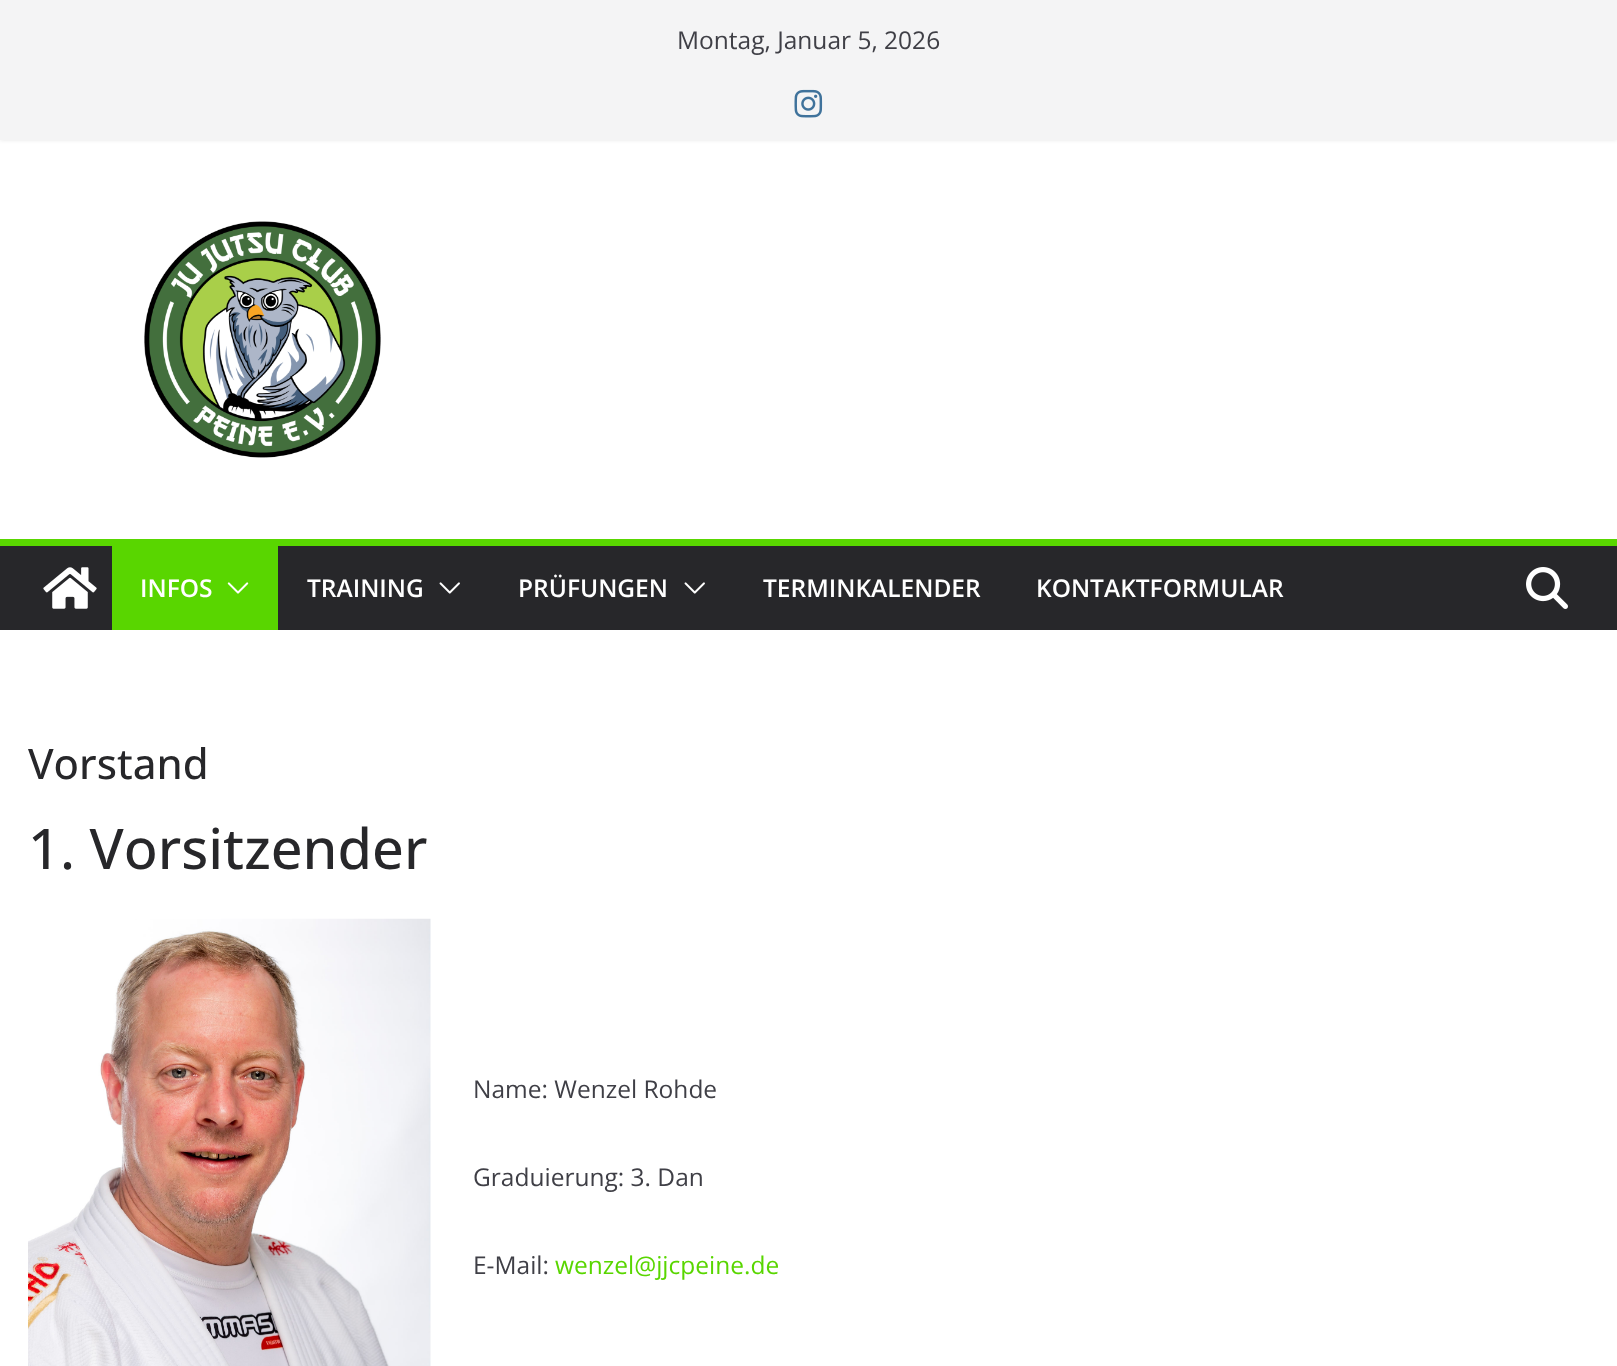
<svg xmlns="http://www.w3.org/2000/svg" width="1617" height="1366" viewBox="0 0 1617 1366">
  <defs>
    <filter id="blur1" x="-50%" y="-200%" width="200%" height="500%"><feGaussianBlur stdDeviation="2"/></filter>
  </defs>
  <rect width="100%" height="100%" fill="#ffffff"/>
  <rect x="0" y="0" width="1617" height="140" fill="#000000" fill-opacity="0.1" filter="url(#blur1)"/>
  <rect x="0" y="0" width="1617" height="140" fill="#f4f4f5"/>
  <text x="677" y="49" font-family="Open Sans" font-size="24.5" fill="#3f3f46">Montag, Januar 5, 2026</text>
  <image x="794" y="89" width="29" height="29" href="img1.png"/>
  <image x="144" y="221" width="237" height="237" href="img2.png"/>
  <rect x="0" y="546" width="1617" height="84" fill="#27272a"/>
  <rect x="0" y="539" width="1617" height="7" fill="#59d600"/>
  <image x="43" y="567" width="54" height="42" href="img3.png"/>
  <rect x="112" y="546" width="166" height="84" fill="#59d600"/>
  <text x="140" y="597" font-family="Open Sans" font-size="24.5" font-weight="600" fill="#ffffff">INFOS</text>
  <image x="227" y="582" width="22" height="12" href="img4.png"/>
  <text x="307" y="597" font-family="Open Sans" font-size="24.5" font-weight="600" fill="#ffffff">TRAINING</text>
  <image x="439" y="582" width="21" height="12" href="img5.png"/>
  <text x="518" y="597" font-family="Open Sans" font-size="24.5" font-weight="600" fill="#ffffff">PRÜFUNGEN</text>
  <image x="684" y="582" width="21" height="12" href="img5.png"/>
  <text x="763" y="597" font-family="Open Sans" font-size="24.5" font-weight="600" fill="#ffffff">TERMINKALENDER</text>
  <text x="1036" y="597" font-family="Open Sans" font-size="24.5" font-weight="600" fill="#ffffff">KONTAKTFORMULAR</text>
  <image x="1526" y="567" width="42" height="42" href="img6.png"/>
  <text x="28" y="779" font-family="Open Sans" font-size="42" font-weight="500" fill="#27272a">Vorstand</text>
  <text x="28" y="869" font-family="Open Sans" font-size="56" font-weight="500" fill="#27272a">1. Vorsitzender</text>
  <image x="28" y="918" width="403" height="448" href="img7.png"/>
  <text x="473" y="1098" font-family="Open Sans" font-size="24.5" fill="#3f3f46">Name: Wenzel Rohde</text>
  <text x="473" y="1186" font-family="Open Sans" font-size="24.5" fill="#3f3f46">Graduierung: 3. Dan</text>
  <text x="473" y="1274" font-family="Open Sans" font-size="24.5" fill="#3f3f46">E-Mail:</text>
  <text x="555" y="1274" font-family="Open Sans" font-size="24.5" fill="#59d600">wenzel@jjcpeine.de</text>
</svg>
